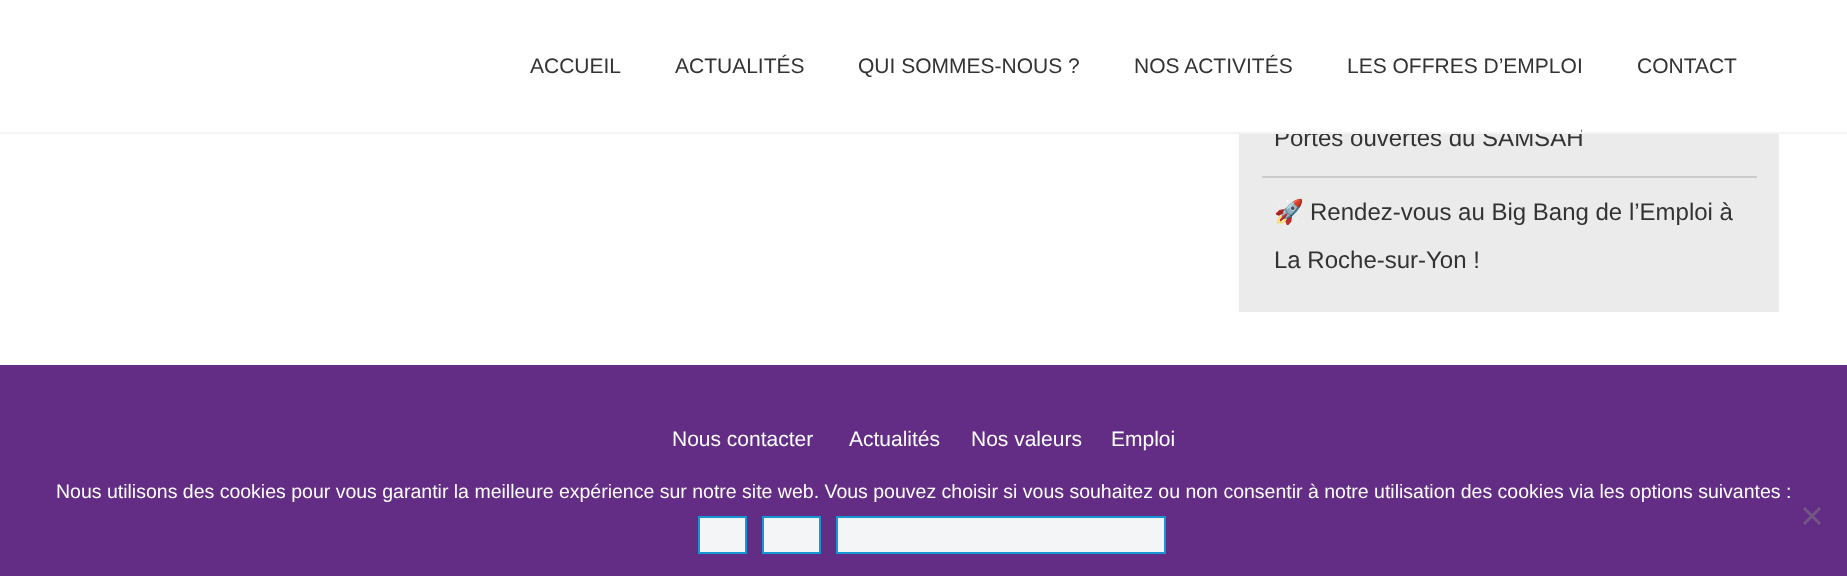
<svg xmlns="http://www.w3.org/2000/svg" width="1847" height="576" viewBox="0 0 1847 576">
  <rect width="100%" height="100%" fill="#ffffff"/>
  <rect x="1239" y="134" width="540" height="178" fill="#ebebeb"/>
  <text x="1274" y="146" font-family="Liberation Sans" font-size="24" fill="#333333">Portes ouvertes du SAMSAH</text>
  <rect x="1275" y="128" width="306" height="4" fill="#ffffff"/>
  <rect x="0" y="132" width="1847" height="2" fill="#f4f4f4"/>
  <text x="530" y="73" font-family="Liberation Sans" font-size="21" fill="#333333">ACCUEIL</text>
  <text x="675" y="73" font-family="Liberation Sans" font-size="21" fill="#333333">ACTUALITÉS</text>
  <text x="858" y="73" font-family="Liberation Sans" font-size="21" fill="#333333">QUI SOMMES-NOUS ?</text>
  <text x="1134" y="73" font-family="Liberation Sans" font-size="21" fill="#333333">NOS ACTIVITÉS</text>
  <text x="1347" y="73" font-family="Liberation Sans" font-size="21" fill="#333333">LES OFFRES D’EMPLOI</text>
  <text x="1637" y="73" font-family="Liberation Sans" font-size="21" fill="#333333">CONTACT</text>
  <rect x="1262" y="176" width="495" height="2" fill="#cccccc"/>
  <text x="1274" y="220" font-family="Noto Color Emoji" font-size="24" fill="#333333">🚀</text>
  <text x="1310" y="220" font-family="Liberation Sans" font-size="24" fill="#333333">Rendez-vous au Big Bang de l’Emploi à</text>
  <text x="1274" y="268" font-family="Liberation Sans" font-size="24" fill="#333333">La Roche-sur-Yon !</text>
  <rect x="0" y="365" width="1847" height="211" fill="#632d85"/>
  <text x="672" y="446" font-family="Liberation Sans" font-size="21" fill="#ffffff">Nous contacter</text>
  <text x="849" y="446" font-family="Liberation Sans" font-size="21" fill="#ffffff">Actualités</text>
  <text x="971" y="446" font-family="Liberation Sans" font-size="21" fill="#ffffff">Nos valeurs</text>
  <text x="1111" y="446" font-family="Liberation Sans" font-size="21" fill="#ffffff">Emploi</text>
  <text x="56" y="498" font-family="Liberation Sans" font-size="19.5" fill="#ffffff">Nous utilisons des cookies pour vous garantir la meilleure expérience sur notre site web. Vous pouvez choisir si vous souhaitez ou non consentir à notre utilisation des cookies via les options suivantes :</text>
  <rect x="699" y="517" width="47" height="36" fill="#f4f5f6" stroke="#1697d4" stroke-width="2"/>
  <rect x="763" y="517" width="57" height="36" fill="#f4f5f6" stroke="#1697d4" stroke-width="2"/>
  <rect x="837" y="517" width="328" height="36" fill="#f4f5f6" stroke="#1697d4" stroke-width="2"/>
  <path d="M1819 507L1821 509L1805 525L1803 523Z" fill="#725783"/>
  <path d="M1803 509L1805 507L1821 523L1819 525Z" fill="#725783"/>
</svg>
